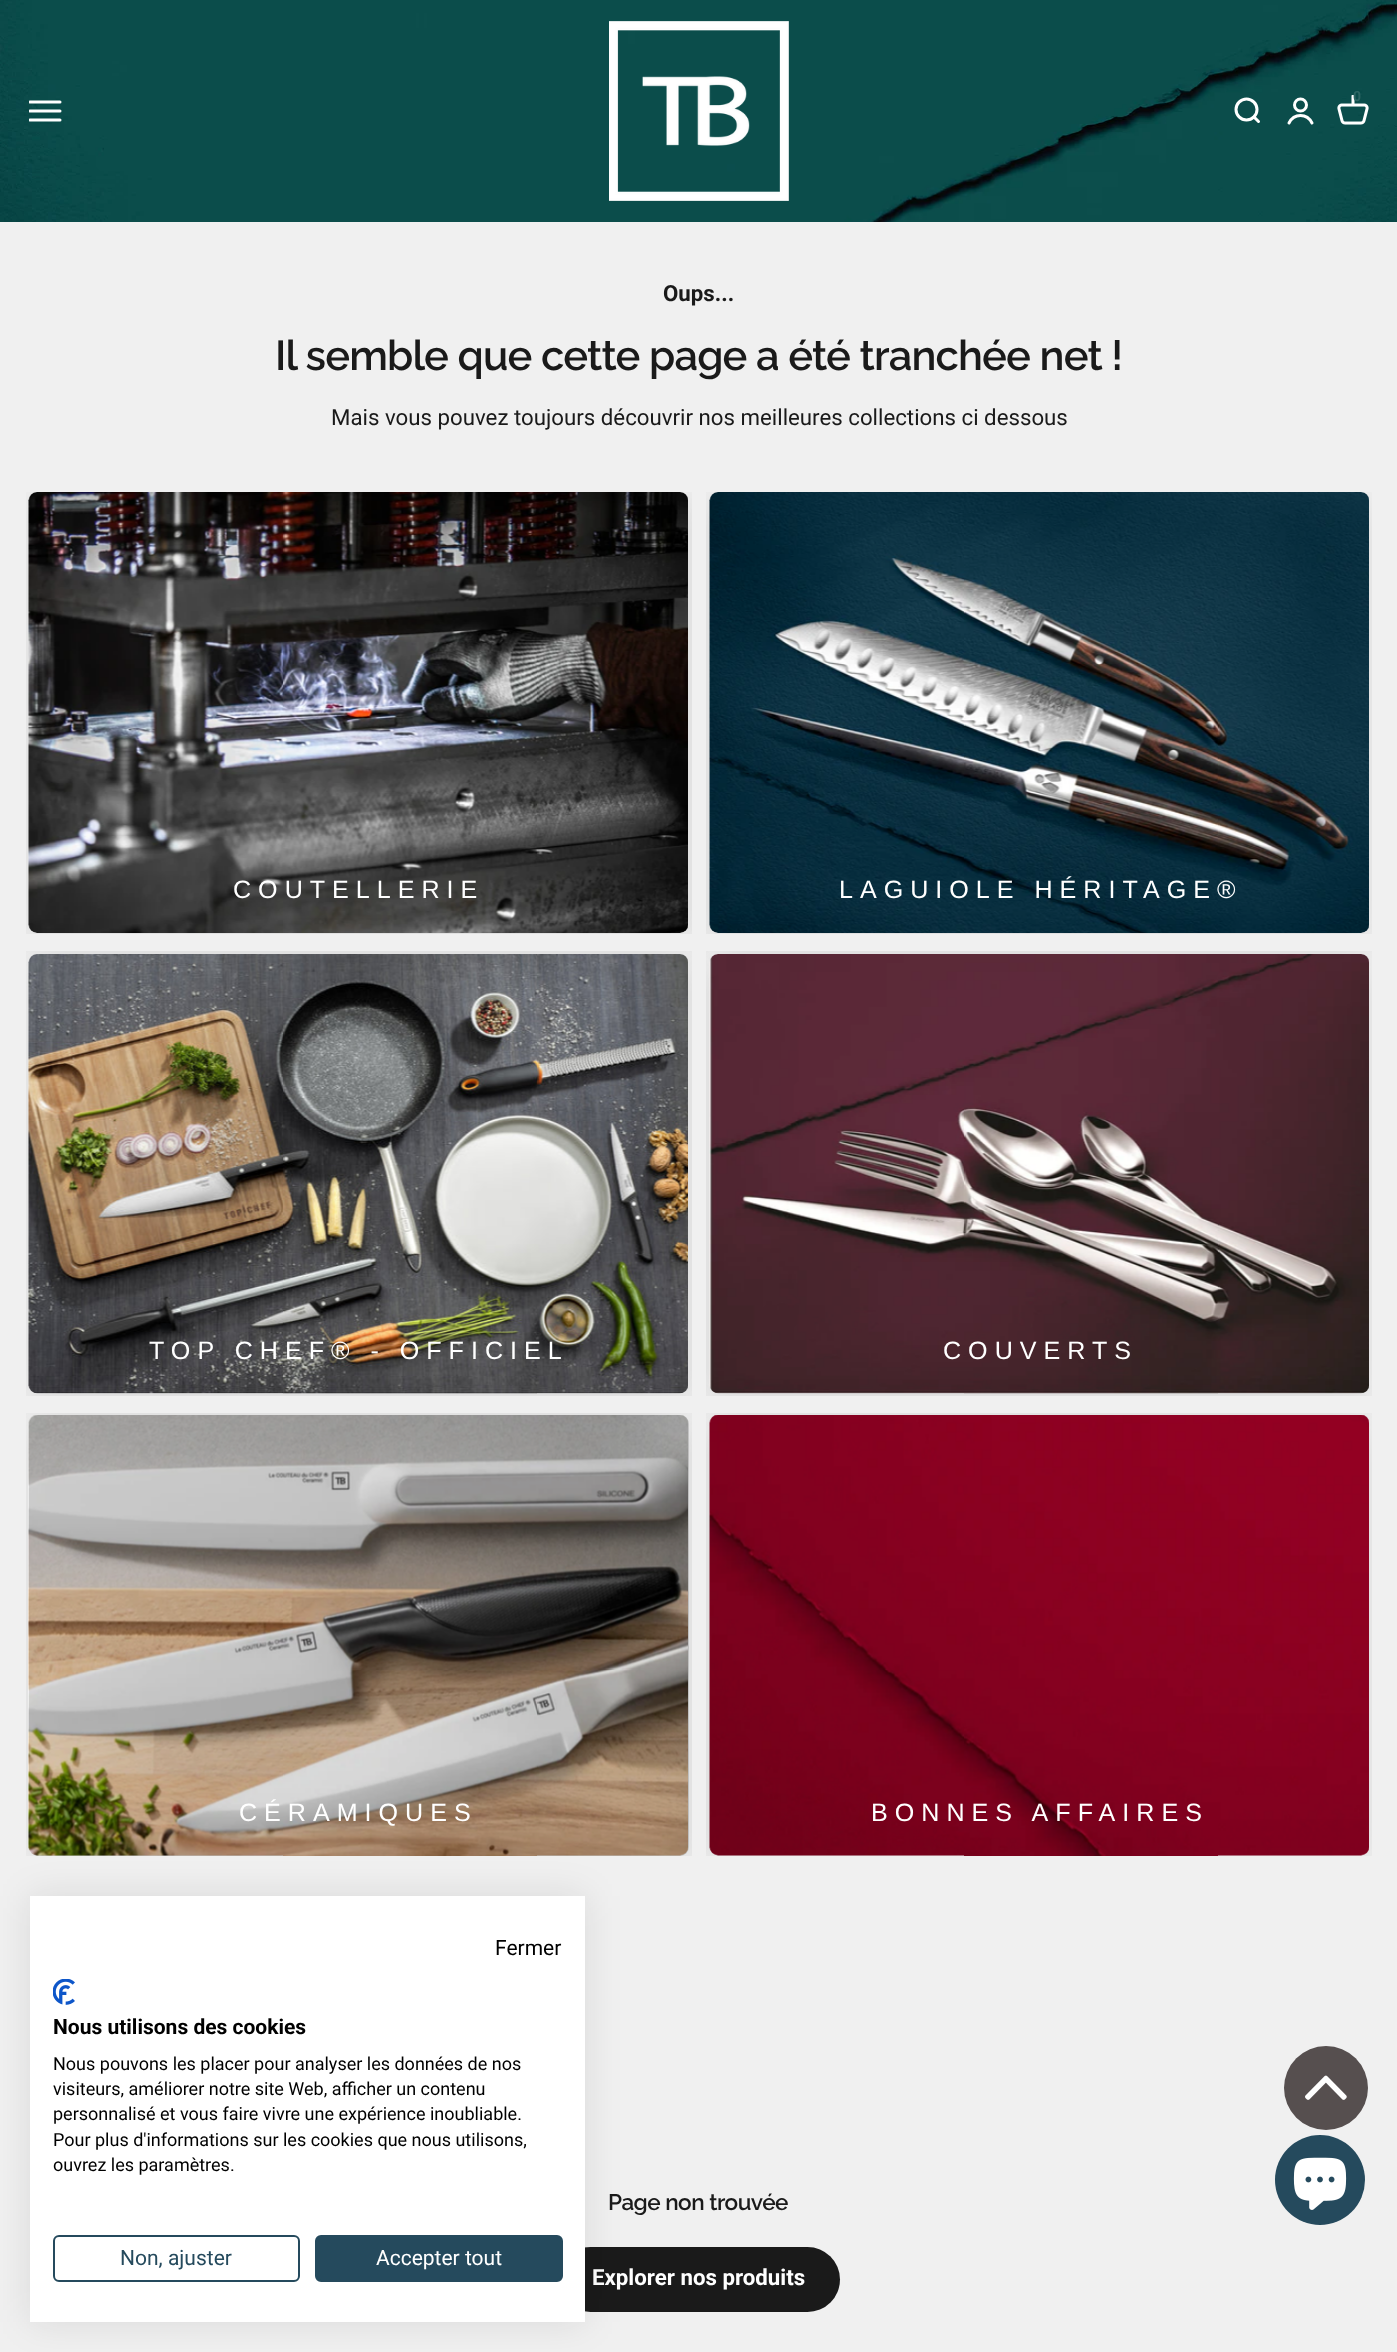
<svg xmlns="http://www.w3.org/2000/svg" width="1397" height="2352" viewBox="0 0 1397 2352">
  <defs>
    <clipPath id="clip1"><rect x="29" y="95" width="33" height="33"/></clipPath>
    <filter id="blur1" x="-50%" y="-200%" width="200%" height="500%"><feGaussianBlur stdDeviation="18"/></filter>
  </defs>
  <rect width="100%" height="100%" fill="#f0f0f0"/>
  <image x="0" y="0" width="1397" height="222" href="img3.png"/>
  <image x="609" y="21" width="180" height="180" href="img1.png"/>
  <circle cx="1246.5" cy="109.5" r="10.5" fill="none" stroke="#ffffff" stroke-width="3"/>
  <path d="M1254 117L1258.5 121.5" fill="none" stroke="#ffffff" stroke-width="3" stroke-linecap="round" stroke-linejoin="round"/>
  <circle cx="1300.5" cy="105" r="6" fill="none" stroke="#ffffff" stroke-width="3"/>
  <path d="M1289 123C1294 113 1307 113 1312 123" fill="none" stroke="#ffffff" stroke-width="3" stroke-linecap="round"/>
  <image x="1337" y="95" width="32" height="30" href="img2.png"/>
  <text x="1353" y="101" font-family="Roboto" font-size="14" font-weight="bold" fill="#2d6664">0</text>
  <g clip-path="url(#clip1)">
    <path d="M30 102H60M30 111H60M30 120H60" fill="none" stroke="#ffffff" stroke-width="3" stroke-linecap="round"/>
  </g>
  <text x="663" y="301" font-family="Roboto" font-size="22.25" font-weight="bold" fill="#1a1a1a">Oups...</text>
  <text x="275" y="370" font-family="Raleway" font-size="41.75" font-weight="600" letter-spacing="-0.85" fill="#1a1a1a">Il semble que cette page a été tranchée net !</text>
  <text x="331" y="425" font-family="Roboto" font-size="22.25" fill="#1a1a1a">Mais vous pouvez toujours découvrir nos meilleures collections ci dessous</text>
  <image x="26" y="492" width="666" height="442" href="img4.png"/>
  <text x="233" y="898" font-family="Liberation Sans" font-size="25.1" letter-spacing="7" fill="#ffffff">COUTELLERIE</text>
  <image x="706" y="492" width="666" height="442" href="img5.png"/>
  <text x="839" y="898" font-family="Liberation Sans" font-size="25.1" letter-spacing="7" fill="#ffffff">LAGUIOLE HÉRITAGE®</text>
  <image x="26" y="951" width="666" height="445" href="img6.png"/>
  <text x="149" y="1359" font-family="Liberation Sans" font-size="25.1" letter-spacing="7" fill="#ffffff">TOP CHEF® - OFFICIEL</text>
  <image x="706" y="951" width="666" height="445" href="img7.png"/>
  <text x="943" y="1359" font-family="Liberation Sans" font-size="25.1" letter-spacing="7" fill="#ffffff">COUVERTS</text>
  <image x="26" y="1413" width="666" height="443" href="img8.png"/>
  <rect x="29" y="1415" width="660" height="441" rx="9" fill="#000000" fill-opacity="0.15"/>
  <text x="239" y="1821" font-family="Liberation Sans" font-size="25.1" letter-spacing="7" fill="#ffffff">CÉRAMIQUES</text>
  <image x="706" y="1413" width="666" height="443" href="img9.png"/>
  <text x="871" y="1821" font-family="Liberation Sans" font-size="25.1" letter-spacing="7" fill="#ffffff">BONNES AFFAIRES</text>
  <text x="608" y="2210" font-family="Raleway" font-size="22.5" font-weight="600" letter-spacing="-0.5" fill="#1a1a1a">Page non trouvée</text>
  <rect x="558" y="2247" width="282" height="65" rx="32.5" fill="#1a1a1a"/>
  <text x="592" y="2285" font-family="Roboto" font-size="22.25" font-weight="bold" fill="#ffffff">Explorer nos produits</text>
  <rect x="30" y="1896" width="555" height="426" fill="#000000" fill-opacity="0.1" filter="url(#blur1)"/>
  <rect x="30" y="1896" width="555" height="426" fill="#ffffff"/>
  <text x="495" y="1955" font-family="Roboto" font-size="21" fill="#000000">Fermer</text>
  <image x="53" y="1979" width="22" height="26" href="img10.png"/>
  <text x="53" y="2034" font-family="Roboto" font-size="21" font-weight="bold" fill="#000000">Nous utilisons des cookies</text>
  <text x="53" y="2070" font-family="Roboto" font-size="18" fill="#000000">Nous pouvons les placer pour analyser les données de nos</text>
  <text x="53" y="2095" font-family="Roboto" font-size="18" fill="#000000">visiteurs, améliorer notre site Web, afficher un contenu</text>
  <text x="53" y="2120" font-family="Roboto" font-size="18" fill="#000000">personnalisé et vous faire vivre une expérience inoubliable.</text>
  <text x="53" y="2146" font-family="Roboto" font-size="18" fill="#000000">Pour plus d'informations sur les cookies que nous utilisons,</text>
  <text x="53" y="2171" font-family="Roboto" font-size="18" fill="#000000">ouvrez les paramètres.</text>
  <rect x="54" y="2236" width="245" height="45" rx="5" fill="none" stroke="#254a5d" stroke-width="2"/>
  <text x="120" y="2265" font-family="Roboto" font-size="21" fill="#254a5d">Non, ajuster</text>
  <rect x="316" y="2236" width="246" height="45" rx="5" fill="#254a5d" stroke="#254a5d" stroke-width="2"/>
  <text x="376" y="2265" font-family="Roboto" font-size="21" fill="#ffffff">Accepter tout</text>
  <circle cx="1326" cy="2088" r="42" fill="#564f4f"/>
  <image x="1305" y="2075" width="42" height="25" href="img11.png"/>
  <circle cx="1320" cy="2180" r="45" fill="#254a5d"/>
  <image x="1293" y="2157" width="54" height="53" href="img12.png"/>
</svg>
